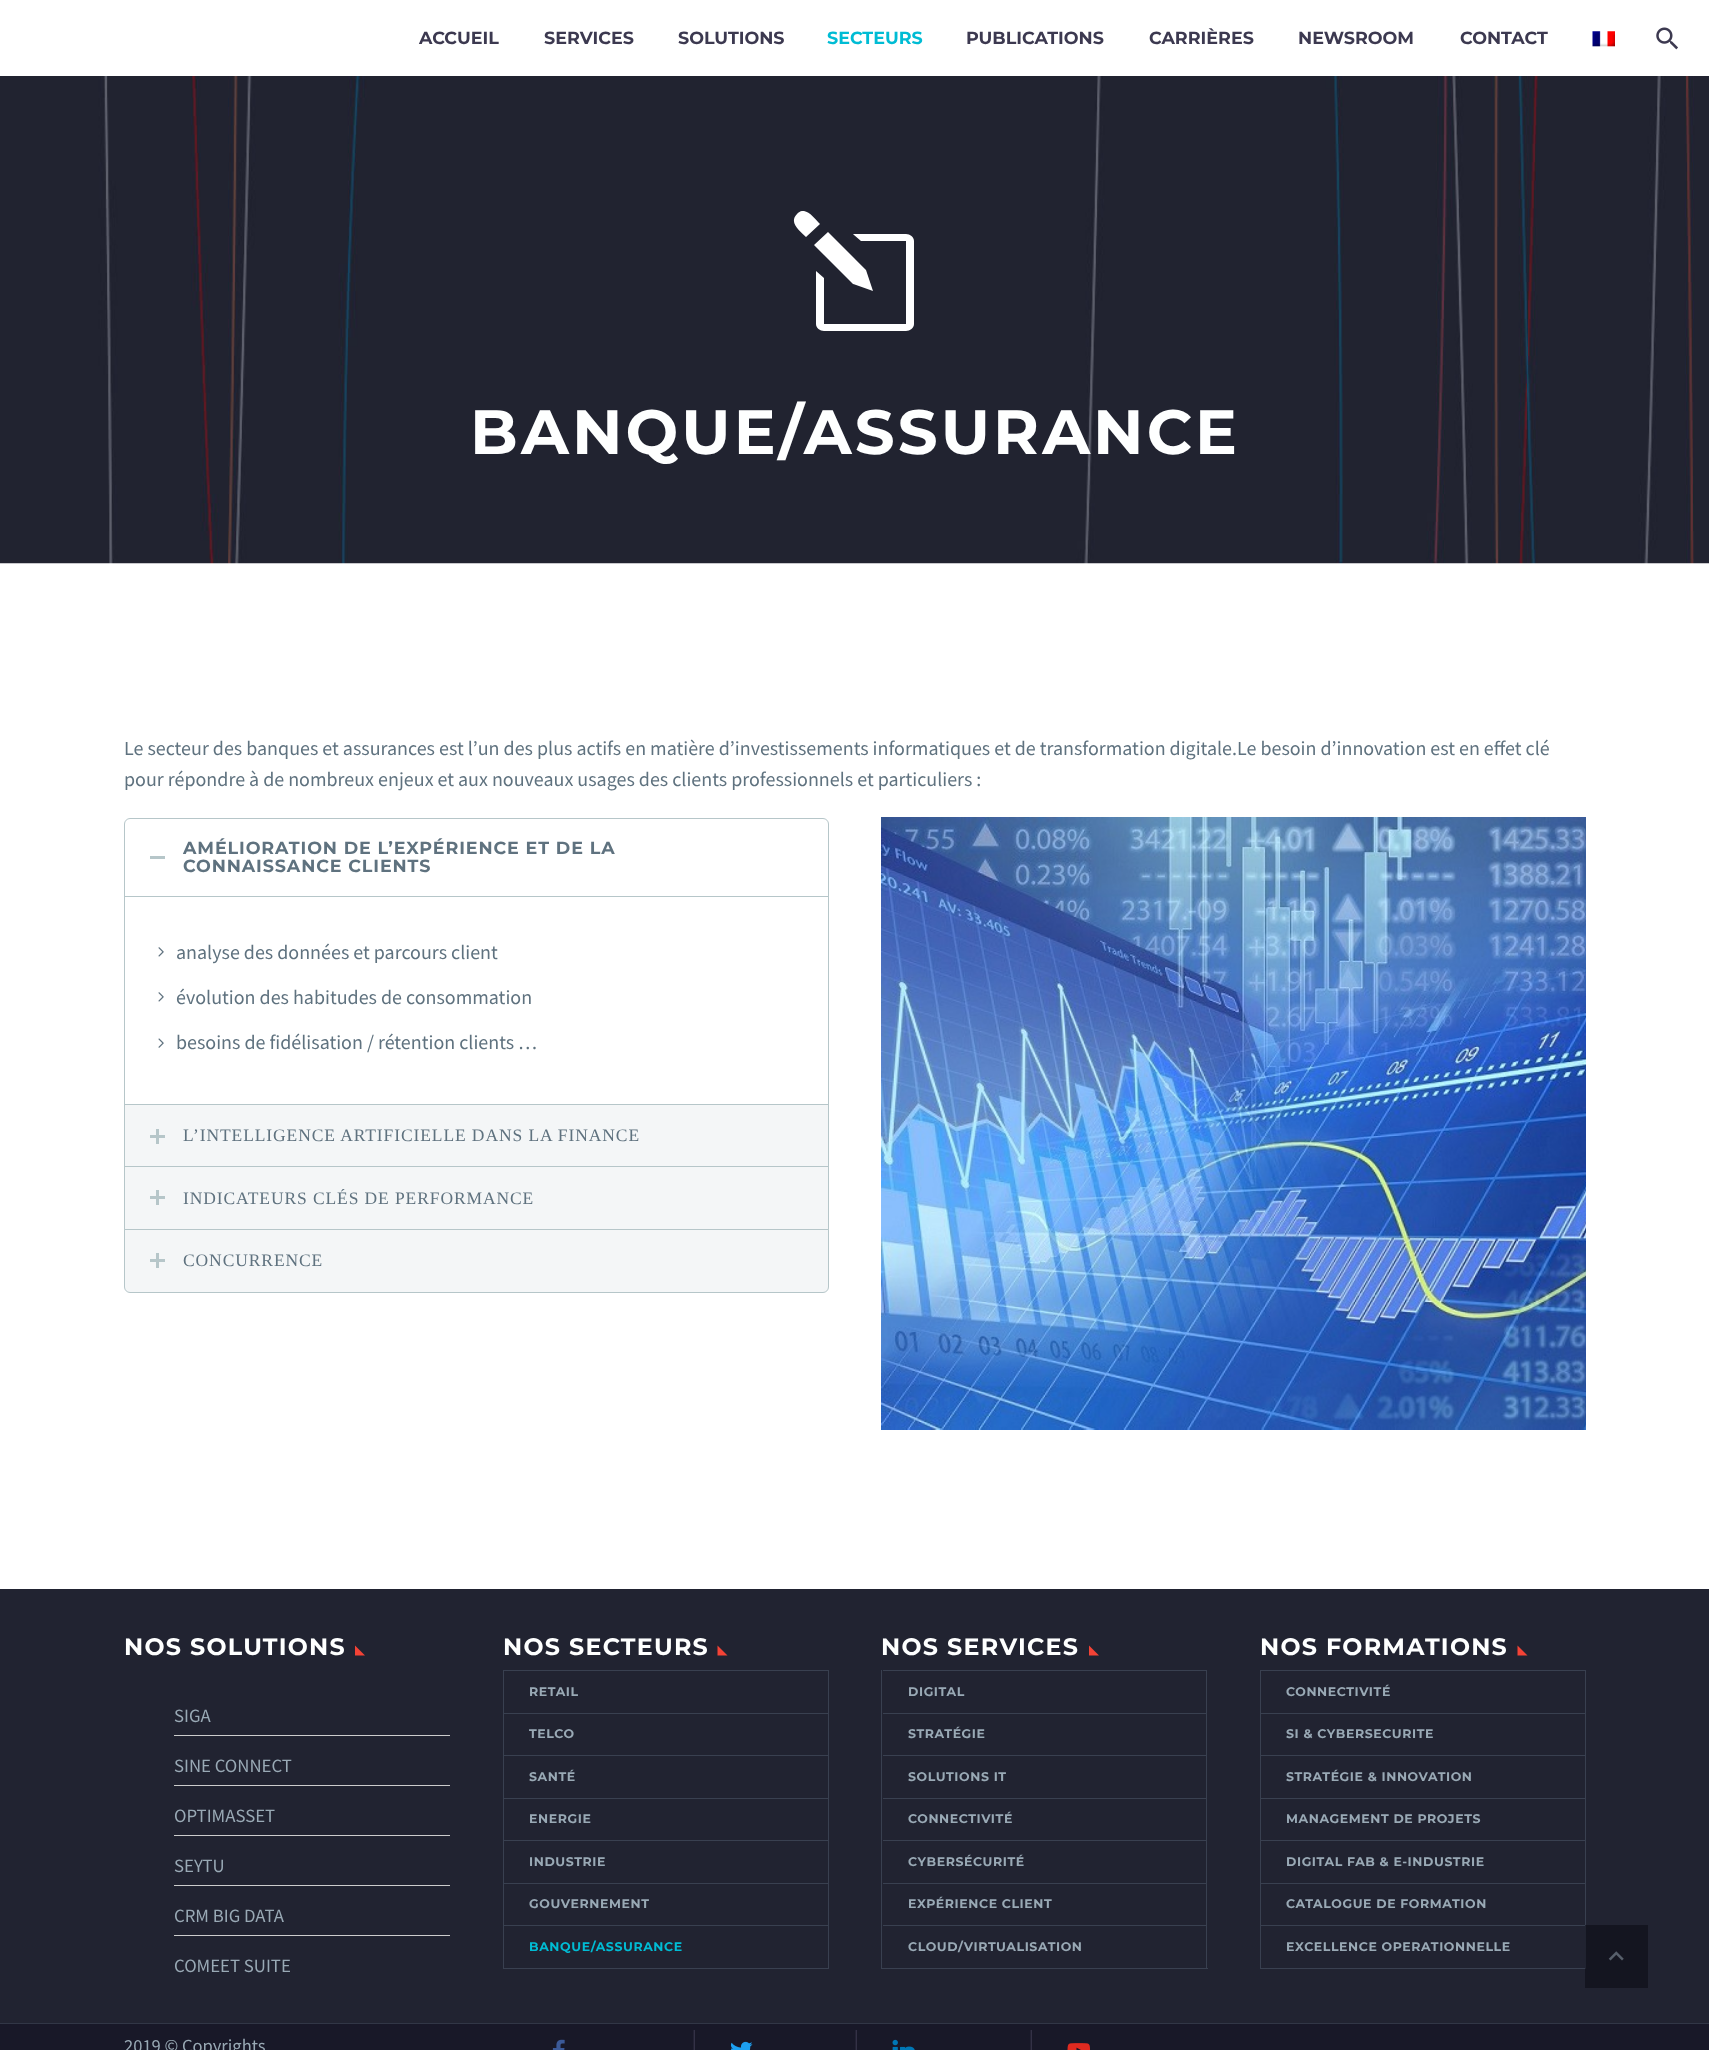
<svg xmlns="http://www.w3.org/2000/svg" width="1709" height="2050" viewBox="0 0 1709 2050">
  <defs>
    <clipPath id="clip1"><rect x="734" y="211" width="120" height="120"/></clipPath>
    <clipPath id="clip2"><rect x="854" y="211" width="120" height="120"/></clipPath>
  </defs>
  <rect width="100%" height="100%" fill="#181828"/>
  <rect x="0" y="0" width="1709" height="76" fill="#ffffff"/>
  <text x="419" y="44" font-family="Montserrat" font-size="17.5" font-weight="bold" fill="#3c3950">ACCUEIL</text>
  <text x="544" y="44" font-family="Montserrat" font-size="17.5" font-weight="bold" fill="#3c3950">SERVICES</text>
  <text x="678" y="44" font-family="Montserrat" font-size="17.5" font-weight="bold" fill="#3c3950">SOLUTIONS</text>
  <text x="827" y="44" font-family="Montserrat" font-size="17.5" font-weight="bold" fill="#00bcd4">SECTEURS</text>
  <text x="966" y="44" font-family="Montserrat" font-size="17.5" font-weight="bold" fill="#3c3950">PUBLICATIONS</text>
  <text x="1149" y="44" font-family="Montserrat" font-size="17.5" font-weight="bold" fill="#3c3950">CARRIÈRES</text>
  <text x="1298" y="44" font-family="Montserrat" font-size="17.5" font-weight="bold" fill="#3c3950">NEWSROOM</text>
  <text x="1460" y="44" font-family="Montserrat" font-size="17.5" font-weight="bold" fill="#3c3950">CONTACT</text>
  <image x="1592" y="31" width="23" height="16" href="img1.png"/>
  <image x="1656" y="27" width="22" height="23" href="img2.png"/>
  <rect x="0" y="563" width="1709" height="1026" fill="#ffffff"/>
  <image x="0" y="76" width="1709" height="488" href="img3.png"/>
  <g clip-path="url(#clip1)">
    <path d="M873 291L853 284L814 245L828 232L866 270ZM797 214C805 205 814 218 820 224L806 237C801 232 788 223 797 214ZM906 234C910 234 914 237 914 241V324C914 328 910 331 906 331H824C820 331 816 328 816 324V271L824 278V324H906V241H861L853 234Z" fill="#ffffff"/>
  </g>
  <g clip-path="url(#clip2)">
    <path d="M873 291L853 284L814 245L828 232L866 270ZM797 214C805 205 814 218 820 224L806 237C801 232 788 223 797 214ZM906 234C910 234 914 237 914 241V324C914 328 910 331 906 331H824C820 331 816 328 816 324V271L824 278V324H906V241H861L853 234Z" fill="#ffffff"/>
  </g>
  <text x="470" y="454" font-family="Montserrat" font-size="62.5" font-weight="bold" letter-spacing="3.1" fill="#feffff">BANQUE/ASSURANCE</text>
  <text x="124" y="755" font-family="Source Sans Pro" font-size="20" fill="#5f727f">Le secteur des banques et assurances est l’un des plus actifs en matière d’investissements informatiques et de transformation digitale.Le besoin d’innovation est en effet clé</text>
  <text x="124" y="786" font-family="Source Sans Pro" font-size="20" fill="#5f727f">pour répondre à de nombreux enjeux et aux nouveaux usages des clients professionnels et particuliers :</text>
  <path d="M130 818.5H823C826 818.5 828.5 821 828.5 824V897.5H124.5V824C124.5 821 127 818.5 130 818.5Z" fill="none" stroke="#b6c6c9"/>
  <rect x="150" y="856" width="15" height="3" fill="#b6c6c9"/>
  <text x="183" y="854" font-family="Montserrat" font-size="17.5" font-weight="bold" letter-spacing="0.9" fill="#5f727f">AMÉLIORATION DE L’EXPÉRIENCE ET DE LA</text>
  <text x="183" y="872" font-family="Montserrat" font-size="17.5" font-weight="bold" letter-spacing="0.9" fill="#5f727f">CONNAISSANCE CLIENTS</text>
  <rect x="125" y="897" width="703" height="1" fill="#ffffff"/>
  <rect x="125" y="1105" width="703" height="61" fill="#f4f6f7"/>
  <rect x="124.5" y="1104.5" width="704" height="63" fill="none" stroke="#b6c6c9"/>
  <rect x="124.5" y="896.5" width="704" height="208" fill="none" stroke="#b6c6c9"/>
  <image x="158" y="947" width="6" height="10" href="img4.png"/>
  <text x="176" y="959" font-family="Source Sans Pro" font-size="20" fill="#5f727f">analyse des données et parcours client</text>
  <image x="158" y="992" width="6" height="10" href="img4.png"/>
  <text x="176" y="1004" font-family="Source Sans Pro" font-size="20" fill="#5f727f">évolution des habitudes de consommation</text>
  <image x="158" y="1038" width="6" height="10" href="img5.png"/>
  <text x="176" y="1049" font-family="Source Sans Pro" font-size="20" fill="#5f727f">besoins de fidélisation / rétention clients …</text>
  <rect x="150" y="1135" width="15" height="3" fill="#b6c6c9"/>
  <rect x="156" y="1129" width="3" height="15" fill="#b6c6c9"/>
  <text x="183" y="1141" font-family="Liberation Serif" font-size="17.5" letter-spacing="0.9" fill="#5f727f">L’INTELLIGENCE ARTIFICIELLE DANS LA FINANCE</text>
  <rect x="124.5" y="1166.5" width="704" height="63" fill="#f4f6f7" stroke="#b6c6c9"/>
  <rect x="150" y="1196" width="15" height="3" fill="#b6c6c9"/>
  <rect x="156" y="1190" width="3" height="15" fill="#b6c6c9"/>
  <text x="183" y="1204" font-family="Liberation Serif" font-size="17.5" letter-spacing="0.9" fill="#5f727f">INDICATEURS CLÉS DE PERFORMANCE</text>
  <path d="M124.5 1229.5H828.5V1287C828.5 1290 826 1292.5 823 1292.5H130C127 1292.5 124.5 1290 124.5 1287Z" fill="#f4f6f7" stroke="#b6c6c9"/>
  <rect x="150" y="1259" width="15" height="3" fill="#b6c6c9"/>
  <rect x="156" y="1253" width="3" height="15" fill="#b6c6c9"/>
  <text x="183" y="1266" font-family="Liberation Serif" font-size="17.5" letter-spacing="0.9" fill="#5f727f">CONCURRENCE</text>
  <image x="881" y="817" width="705" height="613" href="img6.png"/>
  <rect x="0" y="1589" width="1709" height="434" fill="#212331"/>
  <rect x="1585" y="1925" width="63" height="63" fill="#141520"/>
  <text x="124" y="1655" font-family="Montserrat" font-size="23.75" font-weight="bold" letter-spacing="1.25" fill="#feffff">NOS SOLUTIONS</text>
  <path d="M355 1645.5V1655.5H365Z" fill="#f44336"/>
  <rect x="174" y="1735" width="276" height="1" fill="#cccccc"/>
  <text x="174" y="1722" font-family="Source Sans Pro" font-size="18.75" fill="#99a9b5">SIGA</text>
  <rect x="174" y="1785" width="276" height="1" fill="#cccccc"/>
  <text x="174" y="1772" font-family="Source Sans Pro" font-size="18.75" fill="#99a9b5">SINE CONNECT</text>
  <rect x="174" y="1835" width="276" height="1" fill="#cccccc"/>
  <text x="174" y="1822" font-family="Source Sans Pro" font-size="18.75" fill="#99a9b5">OPTIMASSET</text>
  <rect x="174" y="1885" width="276" height="1" fill="#cccccc"/>
  <text x="174" y="1872" font-family="Source Sans Pro" font-size="18.75" fill="#99a9b5">SEYTU</text>
  <rect x="174" y="1935" width="276" height="1" fill="#cccccc"/>
  <text x="174" y="1922" font-family="Source Sans Pro" font-size="18.75" fill="#99a9b5">CRM BIG DATA</text>
  <text x="174" y="1972" font-family="Source Sans Pro" font-size="18.75" fill="#99a9b5">COMEET SUITE</text>
  <text x="503" y="1655" font-family="Montserrat" font-size="23.75" font-weight="bold" letter-spacing="1.25" fill="#feffff">NOS SECTEURS</text>
  <path d="M717.5 1645.5V1655.5H727.5Z" fill="#f44336"/>
  <rect x="828" y="1670" width="1" height="299" fill="#394050"/>
  <rect x="503" y="1968" width="326" height="1" fill="#394050"/>
  <rect x="503" y="1670" width="1" height="299" fill="#394050"/>
  <rect x="504" y="1670" width="324" height="1" fill="#394050"/>
  <text x="529" y="1696" font-family="Montserrat" font-size="12.5" font-weight="bold" letter-spacing="0.6" fill="#99a9b5">RETAIL</text>
  <rect x="504" y="1713" width="324" height="1" fill="#394050"/>
  <text x="529" y="1738" font-family="Montserrat" font-size="12.5" font-weight="bold" letter-spacing="0.6" fill="#99a9b5">TELCO</text>
  <rect x="504" y="1755" width="324" height="1" fill="#394050"/>
  <text x="529" y="1781" font-family="Montserrat" font-size="12.5" font-weight="bold" letter-spacing="0.6" fill="#99a9b5">SANTÉ</text>
  <rect x="504" y="1798" width="324" height="1" fill="#394050"/>
  <text x="529" y="1823" font-family="Montserrat" font-size="12.5" font-weight="bold" letter-spacing="0.6" fill="#99a9b5">ENERGIE</text>
  <rect x="504" y="1840" width="324" height="1" fill="#394050"/>
  <text x="529" y="1866" font-family="Montserrat" font-size="12.5" font-weight="bold" letter-spacing="0.6" fill="#99a9b5">INDUSTRIE</text>
  <rect x="504" y="1883" width="324" height="1" fill="#394050"/>
  <text x="529" y="1908" font-family="Montserrat" font-size="12.5" font-weight="bold" letter-spacing="0.6" fill="#99a9b5">GOUVERNEMENT</text>
  <rect x="504" y="1925" width="324" height="1" fill="#394050"/>
  <text x="529" y="1951" font-family="Montserrat" font-size="12.5" font-weight="bold" letter-spacing="0.6" fill="#00bcd4">BANQUE/ASSURANCE</text>
  <text x="881" y="1655" font-family="Montserrat" font-size="23.75" font-weight="bold" letter-spacing="1.25" fill="#feffff">NOS SERVICES</text>
  <path d="M1089 1645.5V1655.5H1099Z" fill="#f44336"/>
  <rect x="1206" y="1670" width="1" height="299" fill="#394050"/>
  <rect x="881" y="1968" width="327" height="1" fill="#394050"/>
  <rect x="881" y="1670" width="1" height="299" fill="#394050"/>
  <rect x="883" y="1670" width="323" height="1" fill="#394050"/>
  <text x="908" y="1696" font-family="Montserrat" font-size="12.5" font-weight="bold" letter-spacing="0.6" fill="#99a9b5">DIGITAL</text>
  <rect x="883" y="1713" width="323" height="1" fill="#394050"/>
  <text x="908" y="1738" font-family="Montserrat" font-size="12.5" font-weight="bold" letter-spacing="0.6" fill="#99a9b5">STRATÉGIE</text>
  <rect x="883" y="1755" width="323" height="1" fill="#394050"/>
  <text x="908" y="1781" font-family="Montserrat" font-size="12.5" font-weight="bold" letter-spacing="0.6" fill="#99a9b5">SOLUTIONS IT</text>
  <rect x="883" y="1798" width="323" height="1" fill="#394050"/>
  <text x="908" y="1823" font-family="Montserrat" font-size="12.5" font-weight="bold" letter-spacing="0.6" fill="#99a9b5">CONNECTIVITÉ</text>
  <rect x="883" y="1840" width="323" height="1" fill="#394050"/>
  <text x="908" y="1866" font-family="Montserrat" font-size="12.5" font-weight="bold" letter-spacing="0.6" fill="#99a9b5">CYBERSÉCURITÉ</text>
  <rect x="883" y="1883" width="323" height="1" fill="#394050"/>
  <text x="908" y="1908" font-family="Montserrat" font-size="12.5" font-weight="bold" letter-spacing="0.6" fill="#99a9b5">EXPÉRIENCE CLIENT</text>
  <rect x="883" y="1925" width="323" height="1" fill="#394050"/>
  <text x="908" y="1951" font-family="Montserrat" font-size="12.5" font-weight="bold" letter-spacing="0.6" fill="#99a9b5">CLOUD/VIRTUALISATION</text>
  <text x="1260" y="1655" font-family="Montserrat" font-size="23.75" font-weight="bold" letter-spacing="1.25" fill="#feffff">NOS FORMATIONS</text>
  <path d="M1517.5 1645.5V1655.5H1527.5Z" fill="#f44336"/>
  <rect x="1585" y="1670" width="1" height="255" fill="#394050"/>
  <rect x="1585" y="1925" width="1" height="44" fill="#202330"/>
  <rect x="1260" y="1968" width="326" height="1" fill="#394050"/>
  <rect x="1585" y="1968" width="1" height="1" fill="#202330"/>
  <rect x="1260" y="1670" width="1" height="299" fill="#394050"/>
  <rect x="1261" y="1670" width="324" height="1" fill="#394050"/>
  <text x="1286" y="1696" font-family="Montserrat" font-size="12.5" font-weight="bold" letter-spacing="0.6" fill="#99a9b5">CONNECTIVITÉ</text>
  <rect x="1261" y="1713" width="324" height="1" fill="#394050"/>
  <text x="1286" y="1738" font-family="Montserrat" font-size="12.5" font-weight="bold" letter-spacing="0.6" fill="#99a9b5">SI &amp; CYBERSECURITE</text>
  <rect x="1261" y="1755" width="324" height="1" fill="#394050"/>
  <text x="1286" y="1781" font-family="Montserrat" font-size="12.5" font-weight="bold" letter-spacing="0.6" fill="#99a9b5">STRATÉGIE &amp; INNOVATION</text>
  <rect x="1261" y="1798" width="324" height="1" fill="#394050"/>
  <text x="1286" y="1823" font-family="Montserrat" font-size="12.5" font-weight="bold" letter-spacing="0.6" fill="#99a9b5">MANAGEMENT DE PROJETS</text>
  <rect x="1261" y="1840" width="324" height="1" fill="#394050"/>
  <text x="1286" y="1866" font-family="Montserrat" font-size="12.5" font-weight="bold" letter-spacing="0.6" fill="#99a9b5">DIGITAL FAB &amp; E-INDUSTRIE</text>
  <rect x="1261" y="1883" width="324" height="1" fill="#394050"/>
  <text x="1286" y="1908" font-family="Montserrat" font-size="12.5" font-weight="bold" letter-spacing="0.6" fill="#99a9b5">CATALOGUE DE FORMATION</text>
  <rect x="1261" y="1925" width="324" height="1" fill="#394050"/>
  <text x="1286" y="1951" font-family="Montserrat" font-size="12.5" font-weight="bold" letter-spacing="0.6" fill="#99a9b5">EXCELLENCE OPERATIONNELLE</text>
  <image x="1608" y="1951" width="16" height="10" href="img7.png"/>
  <rect x="0" y="2023" width="1709" height="1" fill="#313646"/>
  <text x="124" y="2052" font-family="Source Sans Pro" font-size="18.5" fill="#99a9b5">2019 © Copyrights</text>
  <image x="552" y="2039" width="13" height="11" href="img8.png"/>
  <rect x="694" y="2030" width="1" height="20" fill="#333146"/>
  <rect x="693" y="2030" width="1" height="20" fill="#232234"/>
  <image x="730" y="2041" width="23" height="9" href="img9.png"/>
  <rect x="856" y="2030" width="1" height="20" fill="#333146"/>
  <rect x="855" y="2030" width="1" height="20" fill="#232234"/>
  <image x="892" y="2039" width="23" height="11" href="img10.png"/>
  <rect x="1031" y="2030" width="1" height="20" fill="#333146"/>
  <rect x="1030" y="2030" width="1" height="20" fill="#232234"/>
  <image x="1067" y="2043" width="23" height="7" href="img11.png"/>
</svg>
